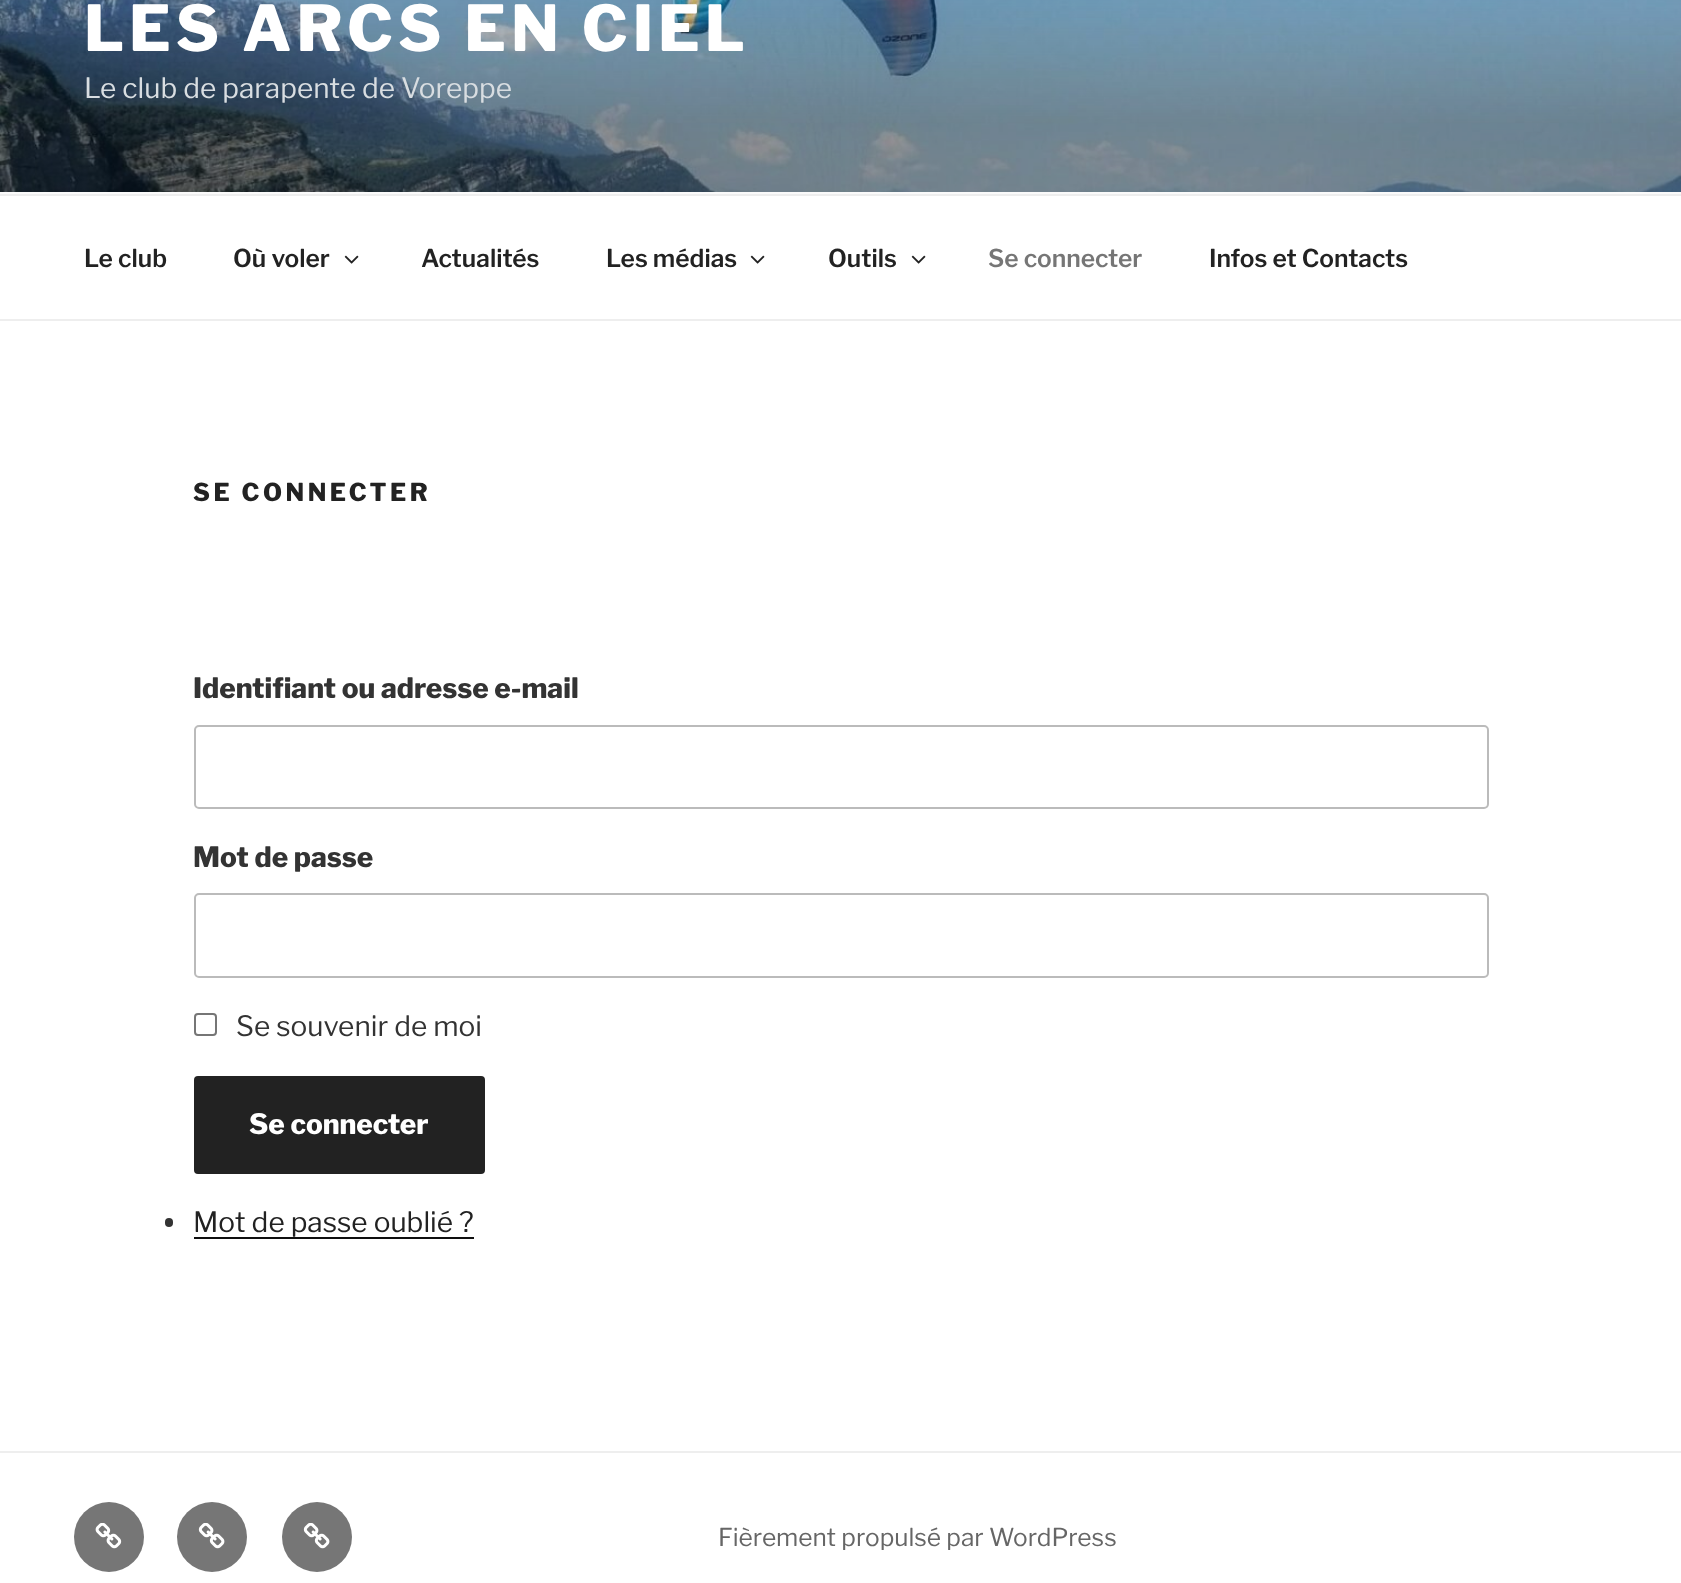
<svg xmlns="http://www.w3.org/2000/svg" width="1681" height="1583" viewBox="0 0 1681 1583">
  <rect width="100%" height="100%" fill="#ffffff"/>
  <rect x="0" y="192" width="1681" height="2" fill="#fafafa"/>
  <image x="0" y="0" width="1681" height="192" href="img1.png"/>
  <text x="84" y="51" font-family="'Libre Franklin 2'" font-size="63" font-weight="100" letter-spacing="5" fill="#ffffff">LES ARCS EN CIEL</text>
  <text x="84" y="98" font-family="Libre Franklin" font-size="28" font-weight="100" fill="#d8dde1">Le club de parapente de Voreppe</text>
  <rect x="0" y="194" width="1681" height="2" fill="#eeeeee"/>
  <rect x="0" y="319" width="1681" height="2" fill="#eeeeee"/>
  <text x="84" y="267" font-family="'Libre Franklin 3'" font-size="24.5" font-weight="100" fill="#222222">Le club</text>
  <text x="233" y="267" font-family="'Libre Franklin 3'" font-size="24.5" font-weight="100" fill="#222222">Où voler</text>
  <image x="344" y="255" width="15" height="9" href="img2.png"/>
  <text x="421" y="267" font-family="'Libre Franklin 3'" font-size="24.5" font-weight="100" fill="#222222">Actualités</text>
  <text x="606" y="267" font-family="'Libre Franklin 3'" font-size="24.5" font-weight="100" fill="#222222">Les médias</text>
  <image x="750" y="255" width="15" height="9" href="img2.png"/>
  <text x="828" y="267" font-family="'Libre Franklin 3'" font-size="24.5" font-weight="100" fill="#222222">Outils</text>
  <image x="911" y="255" width="15" height="9" href="img2.png"/>
  <text x="988" y="267" font-family="'Libre Franklin 3'" font-size="24.5" font-weight="100" fill="#767676">Se connecter</text>
  <text x="1209" y="267" font-family="'Libre Franklin 3'" font-size="24.5" font-weight="100" fill="#222222">Infos et Contacts</text>
  <text x="193" y="501" font-family="'Libre Franklin 2'" font-size="24.5" font-weight="100" letter-spacing="3.5" fill="#222222">SE CONNECTER</text>
  <text x="193" y="698" font-family="'Libre Franklin 2'" font-size="28" font-weight="100" fill="#333333">Identifiant ou adresse e-mail</text>
  <rect x="195" y="726" width="1293" height="82" rx="4" fill="none" stroke="#bbbbbb" stroke-width="2"/>
  <text x="193" y="867" font-family="'Libre Franklin 2'" font-size="28" font-weight="100" fill="#333333">Mot de passe</text>
  <rect x="195" y="894" width="1293" height="83" rx="4" fill="none" stroke="#bbbbbb" stroke-width="2"/>
  <rect x="195" y="1014" width="21" height="21" rx="3" fill="none" stroke="#767676" stroke-width="2"/>
  <text x="236" y="1036" font-family="Libre Franklin" font-size="28" font-weight="100" fill="#333333">Se souvenir de moi</text>
  <rect x="194" y="1076" width="291" height="98" rx="4" fill="#222222"/>
  <text x="249" y="1134" font-family="'Libre Franklin 2'" font-size="28" font-weight="100" fill="#ffffff">Se connecter</text>
  <rect x="165" y="1218" width="8" height="9" rx="4" fill="#333333"/>
  <text x="193" y="1232" font-family="Libre Franklin" font-size="28" font-weight="100" fill="#222222">Mot de passe oublié ?</text>
  <rect x="194" y="1237" width="280" height="2" fill="#0f0f0f"/>
  <rect x="0" y="1451" width="1681" height="2" fill="#eeeeee"/>
  <circle cx="109" cy="1537" r="35" fill="#767676"/>
  <image x="95" y="1523" width="27" height="26" href="img3.png"/>
  <circle cx="212" cy="1537" r="35" fill="#767676"/>
  <image x="198" y="1523" width="27" height="26" href="img4.png"/>
  <circle cx="317" cy="1537" r="35" fill="#767676"/>
  <image x="303" y="1523" width="27" height="26" href="img4.png"/>
  <text x="718" y="1546" font-family="Libre Franklin" font-size="24.5" font-weight="100" fill="#666666">Fièrement propulsé par WordPress</text>
</svg>
